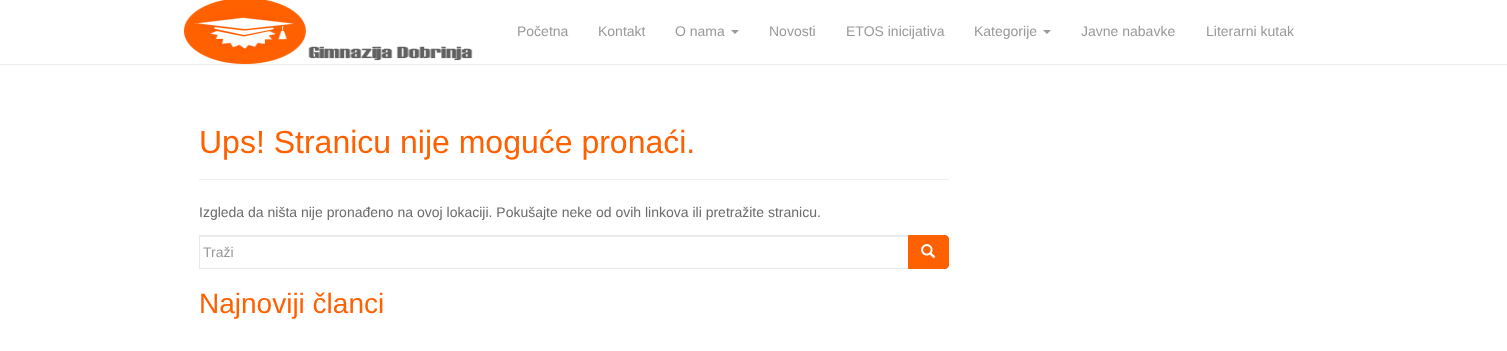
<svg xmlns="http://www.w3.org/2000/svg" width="1507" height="351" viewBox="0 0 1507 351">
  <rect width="100%" height="100%" fill="#ffffff"/>
  <rect x="0" y="64" width="1507" height="1" fill="#eeeeee"/>
  <image x="184" y="0" width="289" height="64" href="img1.png"/>
  <text x="517" y="36" font-family="Liberation Sans" font-size="14" fill="#999999">Početna</text>
  <text x="598" y="36" font-family="Liberation Sans" font-size="14" fill="#999999">Kontakt</text>
  <text x="675" y="36" font-family="Liberation Sans" font-size="14" fill="#999999">O nama</text>
  <path d="M731 30H739L735 34Z" fill="#999999"/>
  <text x="769" y="36" font-family="Liberation Sans" font-size="14" fill="#999999">Novosti</text>
  <text x="846" y="36" font-family="Liberation Sans" font-size="14" fill="#999999">ETOS inicijativa</text>
  <text x="974" y="36" font-family="Liberation Sans" font-size="14" fill="#999999">Kategorije</text>
  <path d="M1043 30H1051L1047 34Z" fill="#999999"/>
  <text x="1081" y="36" font-family="Liberation Sans" font-size="14" fill="#999999">Javne nabavke</text>
  <text x="1206" y="36" font-family="Liberation Sans" font-size="14" fill="#999999">Literarni kutak</text>
  <rect x="199" y="179" width="750" height="1" fill="#eeeeee"/>
  <text x="199" y="153" font-family="Liberation Sans" font-size="32" fill="#ff6000">Ups! Stranicu nije moguće pronaći.</text>
  <text x="199" y="217" font-family="Liberation Sans" font-size="14" fill="#6b6b6b">Izgleda da ništa nije pronađeno na ovoj lokaciji. Pokušajte neke od ovih linkova ili pretražite stranicu.</text>
  <rect x="200" y="236" width="708" height="1" fill="#ececec"/>
  <rect x="199.5" y="235.5" width="709" height="33" fill="none" stroke="#e8e8e8"/>
  <text x="203" y="257" font-family="Liberation Sans" font-size="14" fill="#999999">Traži</text>
  <path d="M908.5 235.5H945C947 235.5 948.5 237 948.5 239V265C948.5 267 947 268.5 945 268.5H908.5Z" fill="#ff6000" stroke="#ff6000"/>
  <image x="921" y="244" width="15" height="14" href="img2.png"/>
  <text x="199" y="313" font-family="Liberation Sans" font-size="28" fill="#ff6000">Najnoviji članci</text>
</svg>
